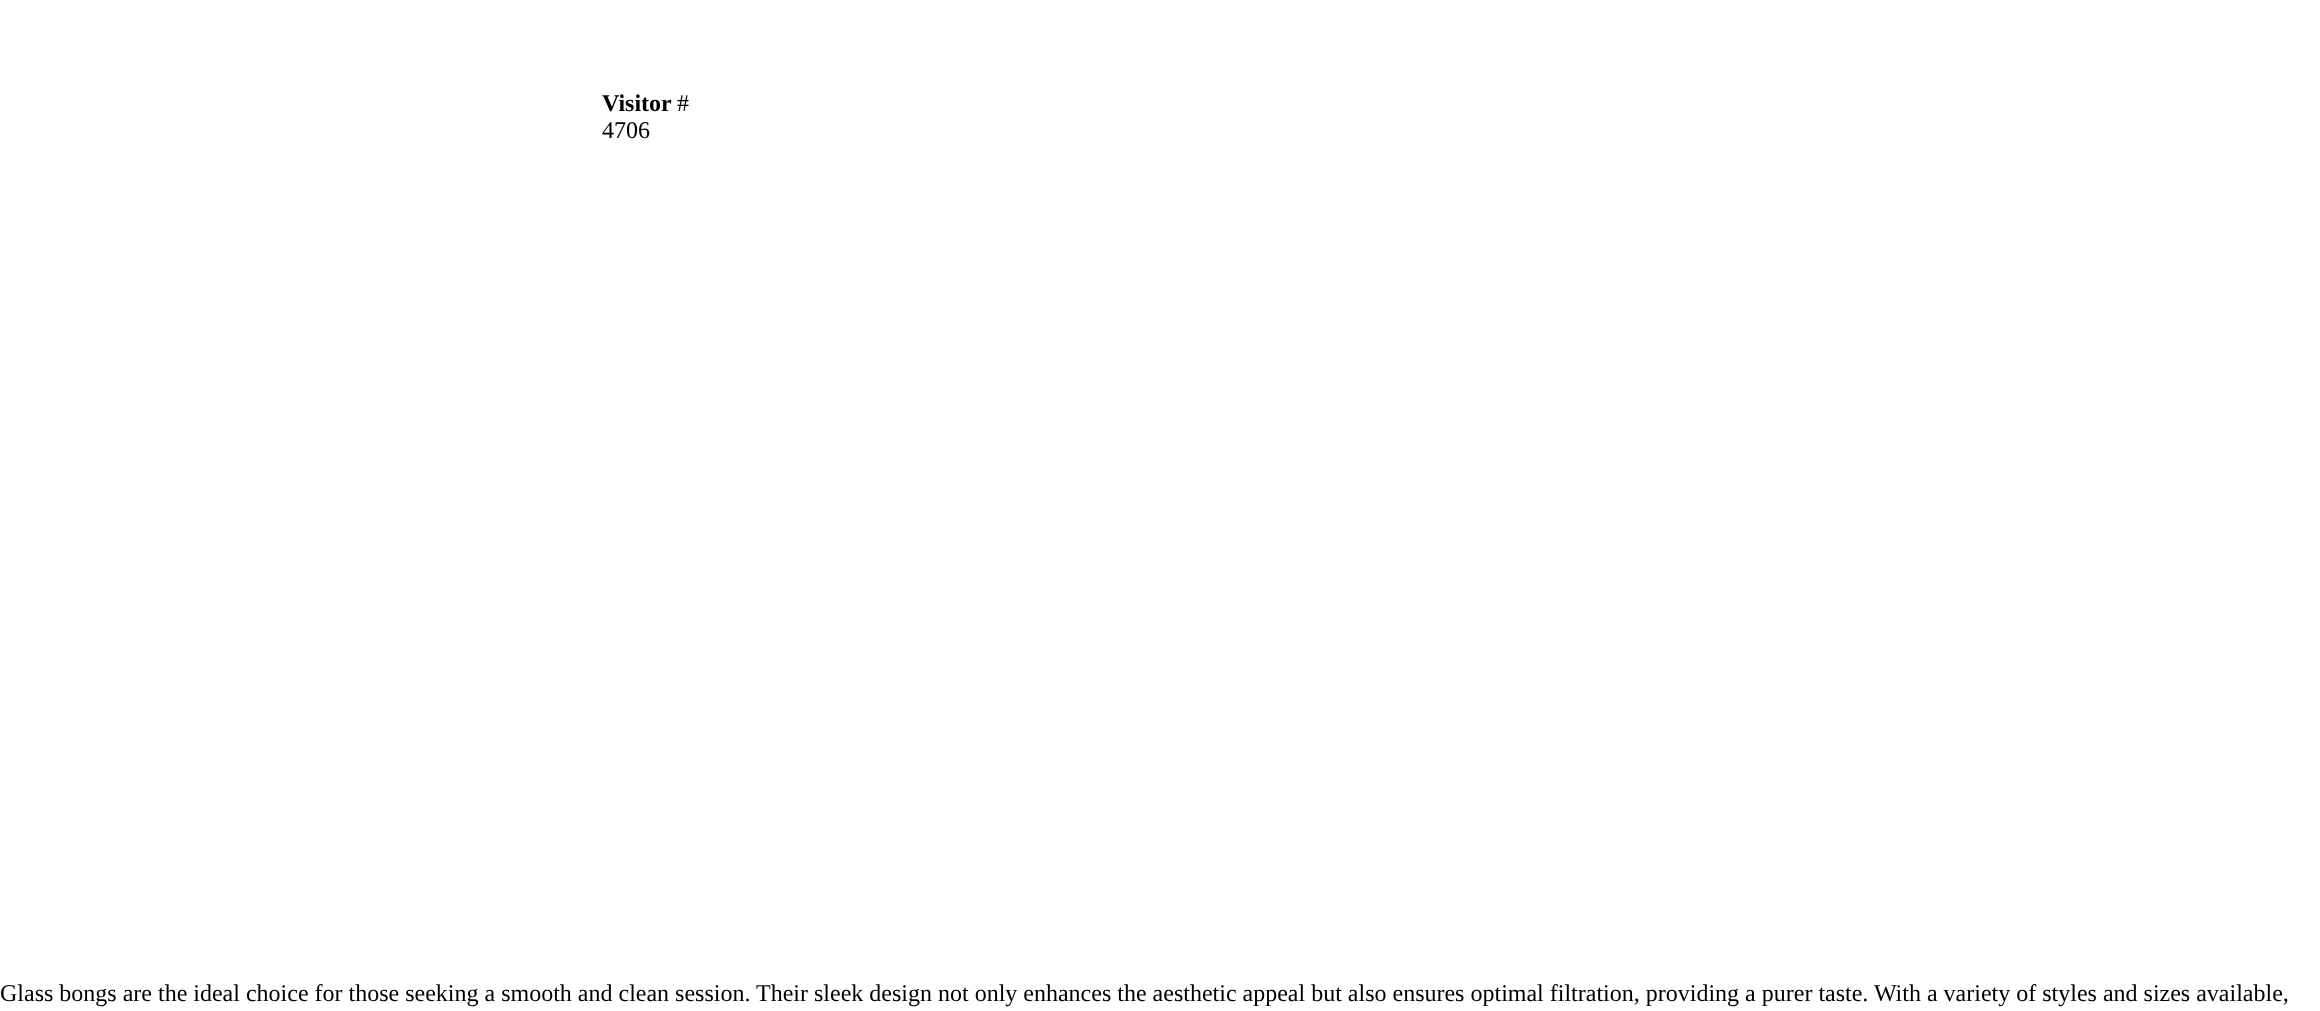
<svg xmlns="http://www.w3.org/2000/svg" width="2320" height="1011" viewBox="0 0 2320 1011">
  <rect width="100%" height="100%" fill="#ffffff"/>
  <text x="602" y="111" font-family="Liberation Serif" font-size="24" font-weight="bold" fill="#000000">Visitor</text>
  <text x="677" y="111" font-family="Liberation Serif" font-size="24" fill="#000000">#</text>
  <text x="602" y="138" font-family="Liberation Serif" font-size="24" fill="#000000">4706</text>
  <text x="0" y="1001" font-family="Liberation Serif" font-size="24" fill="#000000">Glass bongs are the ideal choice for those seeking a smooth and clean session. Their sleek design not only enhances the aesthetic appeal but also ensures optimal filtration, providing a purer taste. With a variety of styles and sizes available,</text>
</svg>
